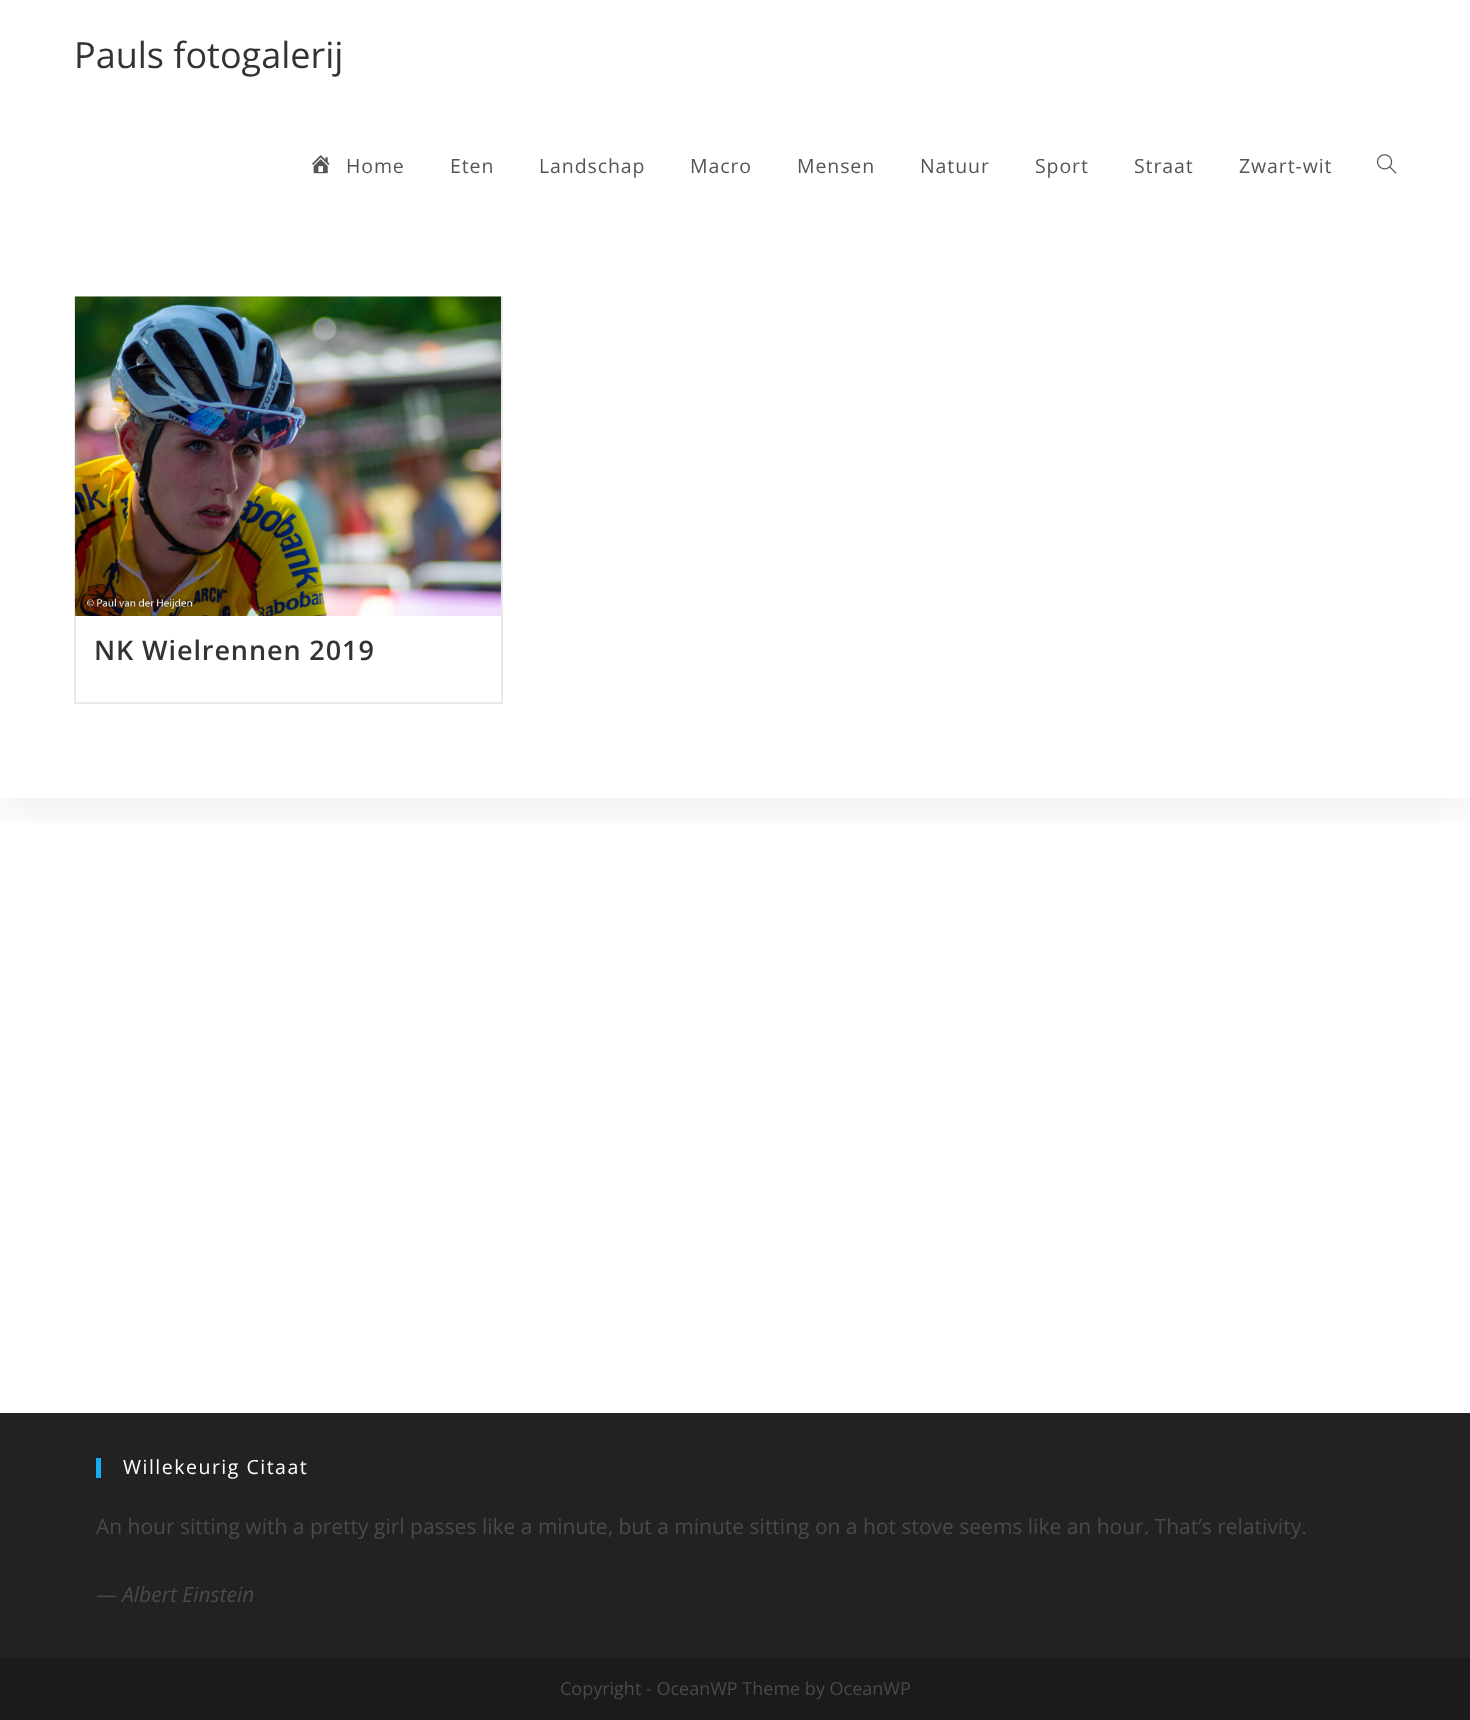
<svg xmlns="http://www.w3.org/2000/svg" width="1470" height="1720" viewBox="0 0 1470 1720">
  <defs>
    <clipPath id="clip1"><rect x="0" y="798" width="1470" height="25"/></clipPath>
    <filter id="blur1" x="-50%" y="-200%" width="200%" height="500%"><feGaussianBlur stdDeviation="30"/></filter>
  </defs>
  <rect width="100%" height="100%" fill="#ffffff"/>
  <g clip-path="url(#clip1)">
    <rect x="0" y="221" width="1470" height="577" fill="#000000" fill-opacity="0.1" filter="url(#blur1)"/>
  </g>
  <rect x="0" y="183" width="1470" height="38" fill="#ffffff"/>
  <text x="74" y="68" font-family="Open Sans" font-size="36" fill="#333333">Pauls fotogalerij</text>
  <image x="312" y="155" width="18" height="19" href="img1.png"/>
  <text x="346" y="173" font-family="Open Sans" font-size="19.5" letter-spacing="0.9" fill="#555555">Home</text>
  <text x="450" y="173" font-family="Open Sans" font-size="19.5" letter-spacing="0.9" fill="#555555">Eten</text>
  <text x="539" y="173" font-family="Open Sans" font-size="19.5" letter-spacing="0.9" fill="#555555">Landschap</text>
  <text x="690" y="173" font-family="Open Sans" font-size="19.5" letter-spacing="0.9" fill="#555555">Macro</text>
  <text x="797" y="173" font-family="Open Sans" font-size="19.5" letter-spacing="0.9" fill="#555555">Mensen</text>
  <text x="920" y="173" font-family="Open Sans" font-size="19.5" letter-spacing="0.9" fill="#555555">Natuur</text>
  <text x="1035" y="173" font-family="Open Sans" font-size="19.5" letter-spacing="0.9" fill="#555555">Sport</text>
  <text x="1134" y="173" font-family="Open Sans" font-size="19.5" letter-spacing="0.9" fill="#555555">Straat</text>
  <text x="1239" y="173" font-family="Open Sans" font-size="19.5" letter-spacing="0.9" fill="#555555">Zwart-wit</text>
  <image x="1377" y="154" width="20" height="20" href="img2.png"/>
  <rect x="75" y="297" width="427" height="406" fill="none" stroke="#e9e9e9" stroke-width="2"/>
  <image x="75" y="296" width="426" height="320" href="img3.png"/>
  <text x="94" y="660" font-family="Open Sans" font-size="27" font-weight="600" letter-spacing="0.9" fill="#333333">NK Wielrennen 2019</text>
  <rect x="0" y="1413" width="1470" height="245" fill="#222222"/>
  <rect x="96" y="1458" width="5" height="20" fill="#13aff0"/>
  <text x="123" y="1474" font-family="Open Sans" font-size="19.5" letter-spacing="1.5" fill="#ffffff">Willekeurig Citaat</text>
  <text x="96" y="1534" font-family="Open Sans" font-size="21" fill="#4a4a4a">An hour sitting with a pretty girl passes like a minute, but a minute sitting on a hot stove seems like an hour. That’s relativity.</text>
  <text x="96" y="1602" font-family="Open Sans" font-size="21" fill="#4a4a4a">—</text>
  <text x="122" y="1602" font-family="Open Sans" font-size="21" font-style="italic" fill="#4a4a4a">Albert Einstein</text>
  <rect x="0" y="1658" width="1470" height="62" fill="#1b1b1b"/>
  <text x="560" y="1695" font-family="Open Sans" font-size="18" fill="#4a4a4a">Copyright - OceanWP Theme by OceanWP</text>
</svg>
